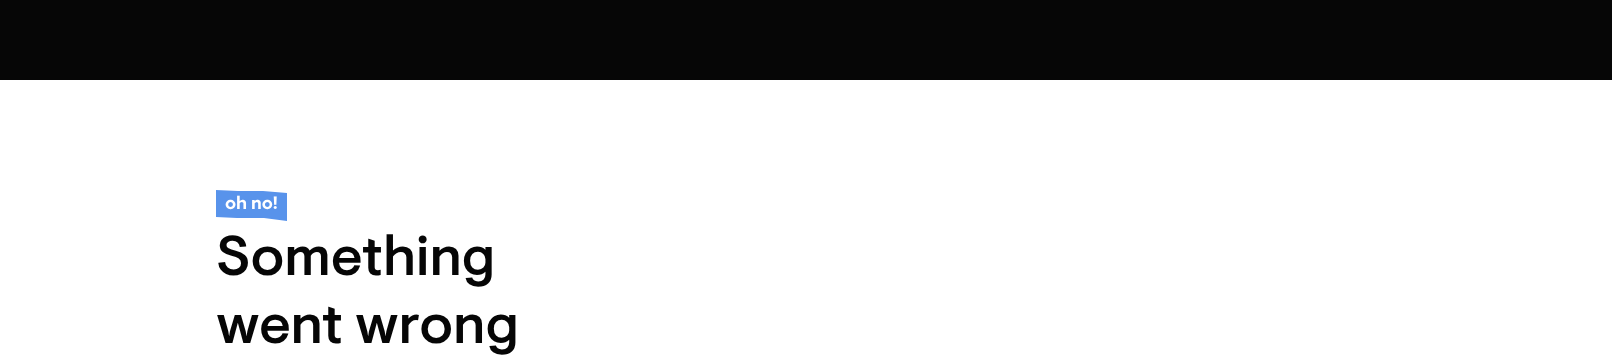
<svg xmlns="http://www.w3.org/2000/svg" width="1612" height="357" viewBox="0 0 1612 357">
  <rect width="100%" height="100%" fill="#ffffff"/>
  <rect x="0" y="0" width="1612" height="80" fill="#060606"/>
  <path d="M216 190L238 191H263L287 193V221L264 218H237L216 217Z" fill="#5893eb"/>
  <text x="225" y="209" font-family="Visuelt" font-size="18" font-weight="bold" fill="#ffffff">oh no!</text>
  <text x="216" y="275" font-family="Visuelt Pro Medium" font-size="56" font-weight="500" fill="#060606">Something</text>
  <text x="216" y="343" font-family="Visuelt Pro Medium" font-size="56" font-weight="500" fill="#060606">went wrong</text>
</svg>
